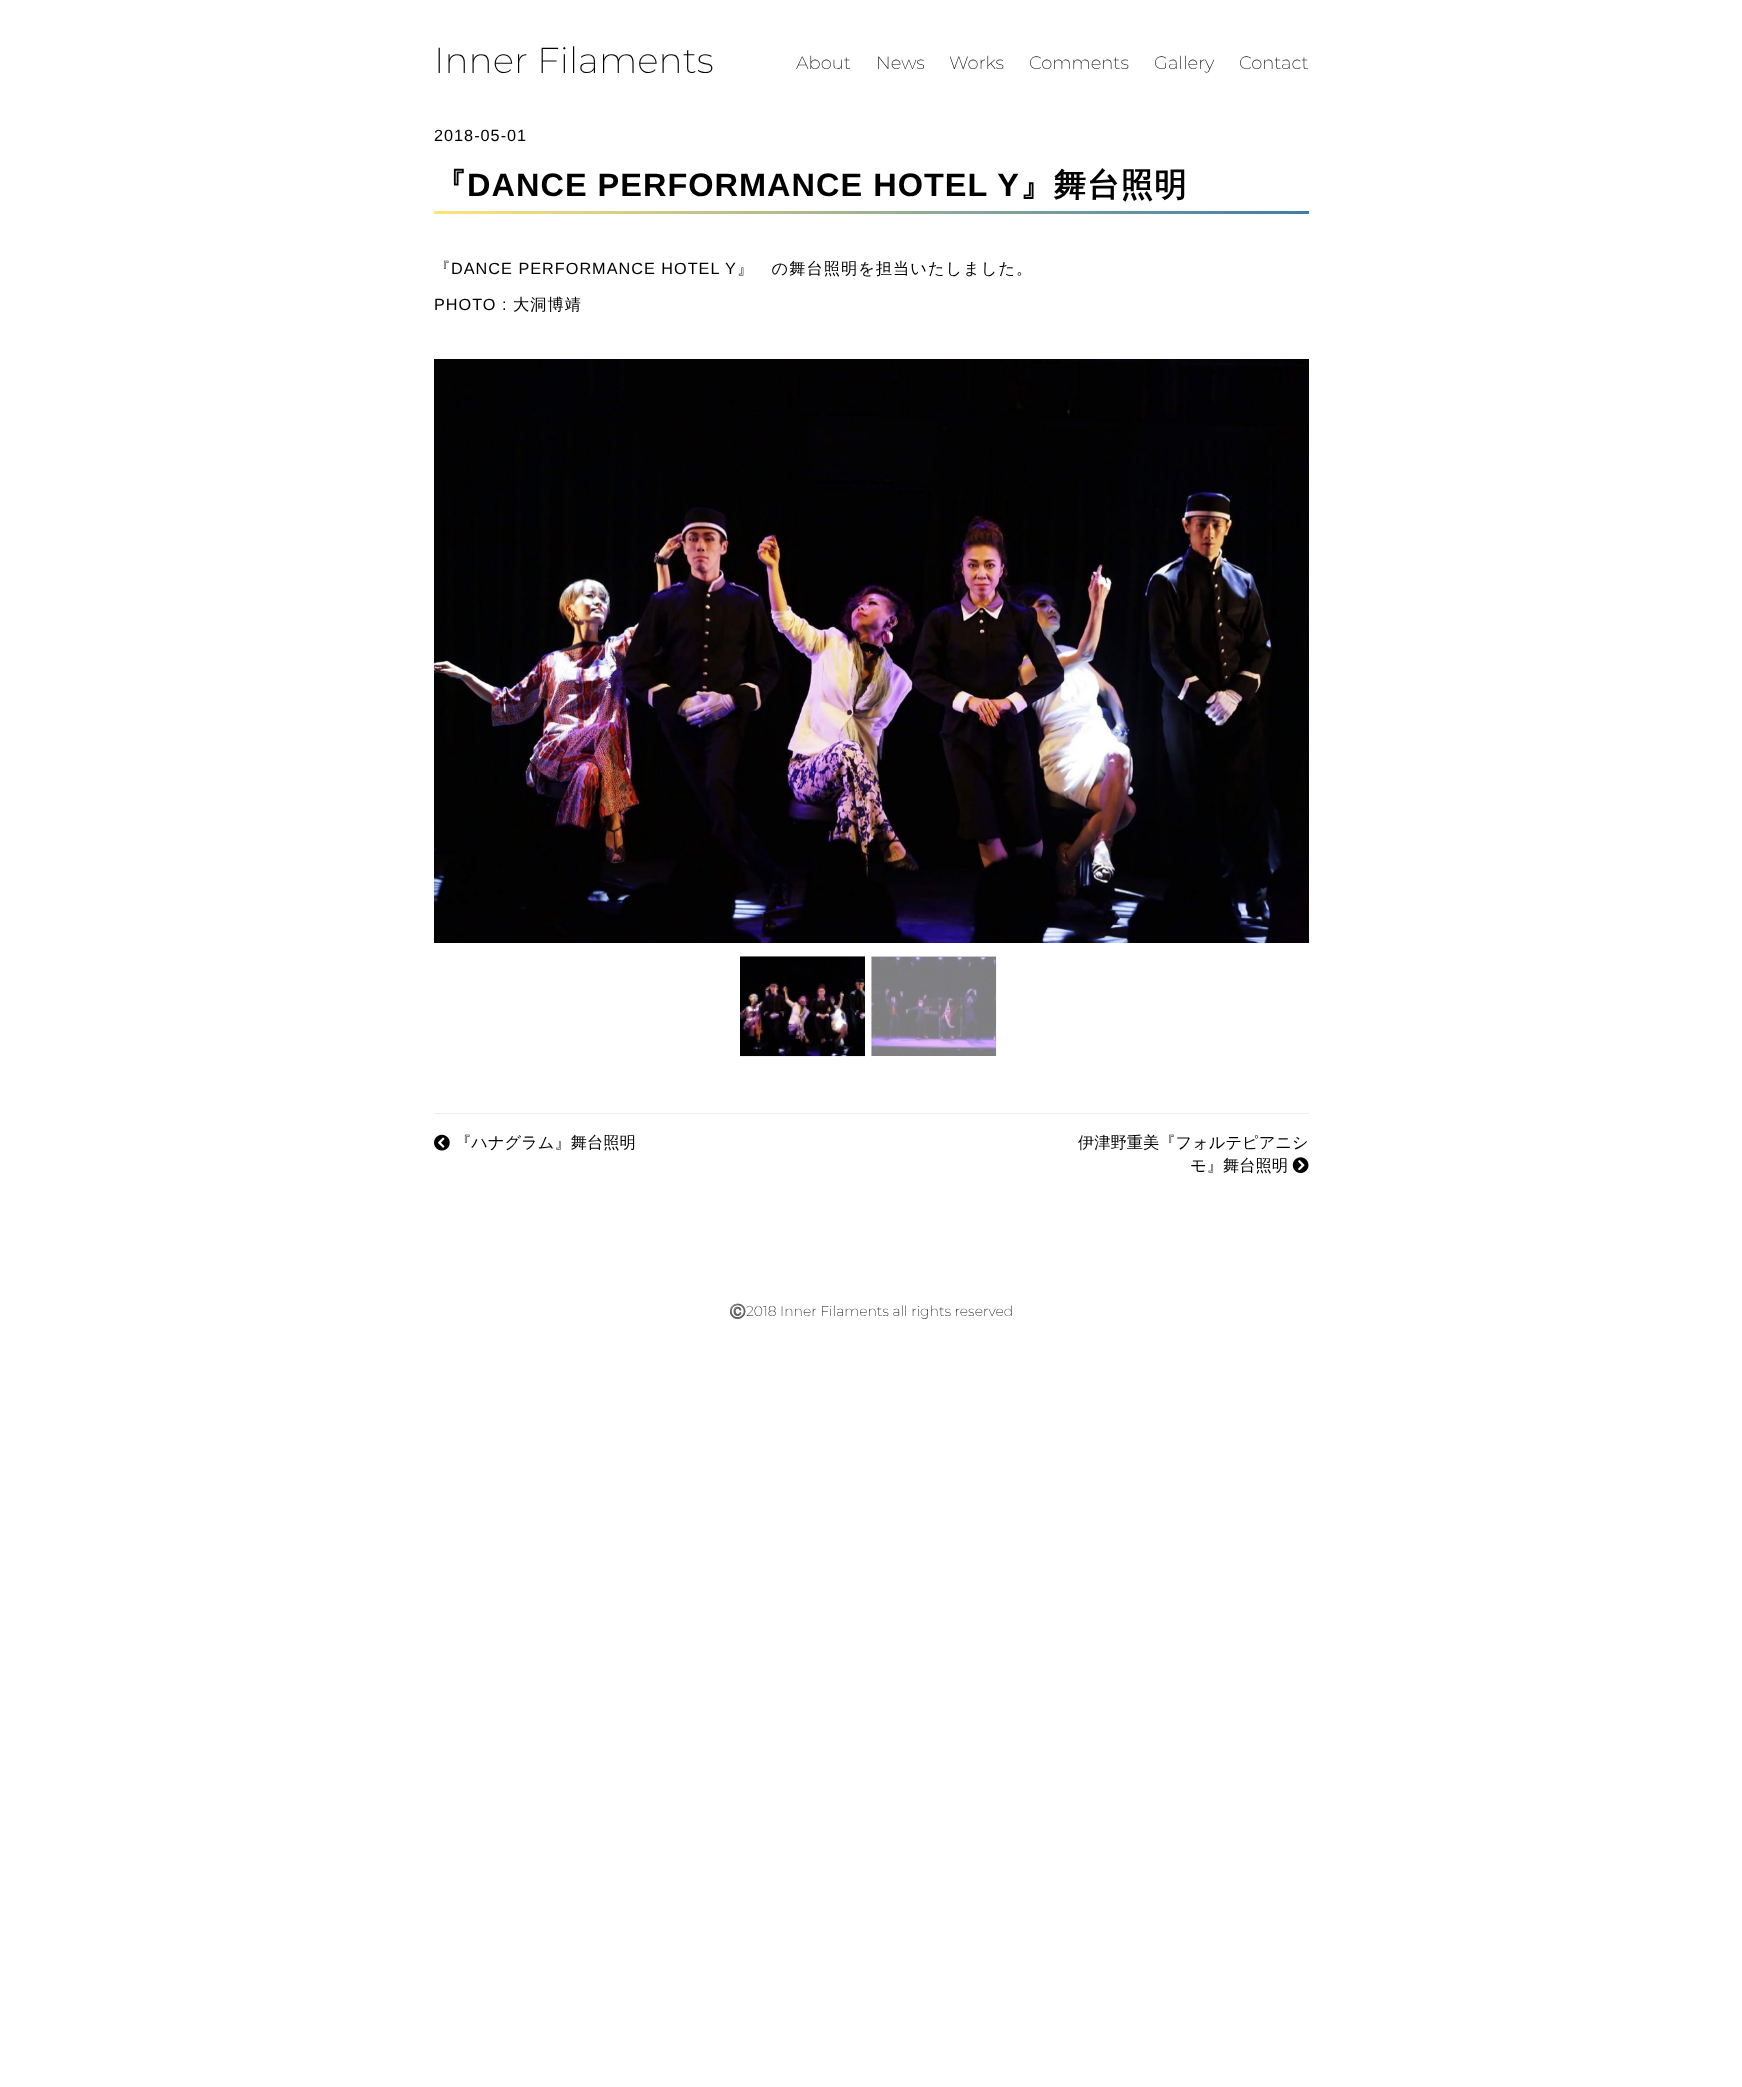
<svg xmlns="http://www.w3.org/2000/svg" width="1742" height="2087" viewBox="0 0 1742 2087">
  <defs>
    <linearGradient id="g1" gradientUnits="userSpaceOnUse" x1="434" y1="212" x2="1309" y2="212"><stop offset="0" stop-color="#ffe47a"/><stop offset="1" stop-color="#3d7eaa"/></linearGradient>
  </defs>
  <rect width="100%" height="100%" fill="#ffffff"/>
  <text x="434" y="73" font-family="Montserrat" font-size="36" font-weight="200" fill="#000000">Inner Filaments</text>
  <text x="796" y="69" font-family="Montserrat" font-size="18" font-weight="200" fill="#000000">About</text>
  <text x="876" y="69" font-family="Montserrat" font-size="18" font-weight="200" fill="#000000">News</text>
  <text x="949" y="69" font-family="Montserrat" font-size="18" font-weight="200" fill="#000000">Works</text>
  <text x="1029" y="69" font-family="Montserrat" font-size="18" font-weight="200" fill="#000000">Comments</text>
  <text x="1154" y="69" font-family="Montserrat" font-size="18" font-weight="200" fill="#000000">Gallery</text>
  <text x="1239" y="69" font-family="Montserrat" font-size="18" font-weight="200" fill="#000000">Contact</text>
  <text x="434" y="141" font-family="Liberation Sans" font-size="16.25" letter-spacing="1" fill="#000000">2018-05-01</text>
  <text x="434" y="196" font-family="WenQuanYi Zen Hei" font-size="32.5" font-weight="bold" letter-spacing="1" fill="#000000">『</text>
  <text x="467" y="196" font-family="Liberation Sans" font-size="32.5" font-weight="bold" letter-spacing="1" fill="#000000">DANCE PERFORMANCE HOTEL Y</text>
  <text x="1020" y="196" font-family="WenQuanYi Zen Hei" font-size="32.5" font-weight="bold" letter-spacing="1" fill="#000000">』舞台照明</text>
  <rect x="434" y="211" width="875" height="3" fill="url(#g1)"/>
  <text x="434" y="274" font-family="WenQuanYi Zen Hei" font-size="16.25" font-weight="500" letter-spacing="1" fill="#000000">『</text>
  <text x="451" y="274" font-family="Liberation Sans" font-size="16.25" letter-spacing="1" fill="#000000">DANCE PERFORMANCE HOTEL Y</text>
  <text x="737" y="274" font-family="WenQuanYi Zen Hei" font-size="16.25" font-weight="500" letter-spacing="1" fill="#000000">』　の舞台照明を担当いたしました。</text>
  <text x="434" y="310" font-family="Liberation Sans" font-size="16.25" letter-spacing="1" fill="#000000">PHOTO :</text>
  <text x="513" y="310" font-family="WenQuanYi Zen Hei" font-size="16.25" font-weight="500" letter-spacing="1" fill="#000000">大洞博靖</text>
  <image x="434" y="359" width="875" height="584" href="img1.png"/>
  <image x="740" y="956" width="125" height="101" href="img2.png"/>
  <image x="871" y="956" width="126" height="100" href="img3.png"/>
  <rect x="434" y="1113" width="875" height="1" fill="#eeeeee"/>
  <image x="434" y="1134" width="16" height="17" href="img4.png"/>
  <text x="455" y="1148" font-family="WenQuanYi Zen Hei" font-size="16.25" font-weight="500" fill="#000000">『ハナグラム』舞台照明</text>
  <text x="1078" y="1148" font-family="WenQuanYi Zen Hei" font-size="16.25" font-weight="500" fill="#000000">伊津野重美『フォルテピアニシ</text>
  <text x="1190" y="1171" font-family="WenQuanYi Zen Hei" font-size="16.25" font-weight="500" fill="#000000">モ』舞台照明</text>
  <image x="1292" y="1157" width="17" height="16" href="img5.png"/>
  <text x="729" y="1316" font-family="Noto Color Emoji" font-size="14" fill="#000000">©️</text>
  <text x="746" y="1316" font-family="Montserrat" font-size="14" font-weight="200" fill="#000000">2018 Inner Filaments all rights reserved</text>
</svg>
